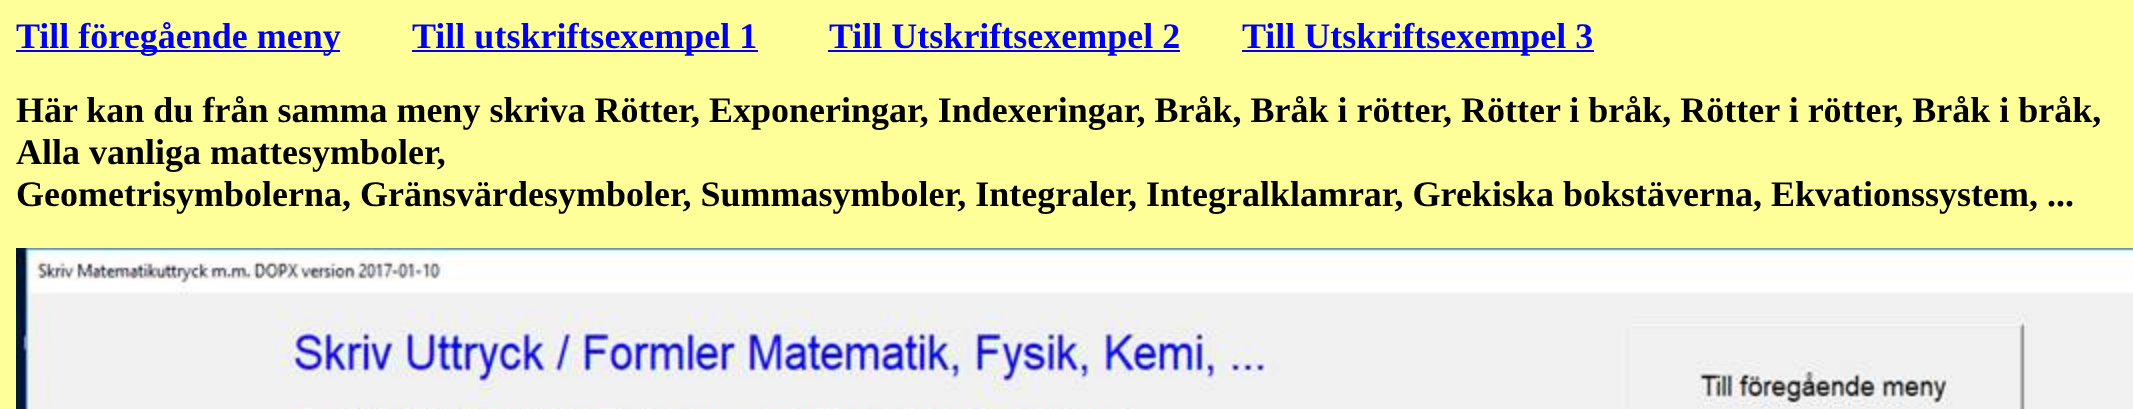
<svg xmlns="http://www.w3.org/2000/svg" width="2133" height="409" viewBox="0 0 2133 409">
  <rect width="100%" height="100%" fill="#ffff99"/>
  <rect x="16" y="50" width="324" height="2" fill="#0000ee"/>
  <text x="16" y="48" font-family="Liberation Serif" font-size="36" font-weight="bold" fill="#0000ee">Till föregående meny</text>
  <rect x="412" y="50" width="346" height="2" fill="#0000ee"/>
  <text x="412" y="48" font-family="Liberation Serif" font-size="36" font-weight="bold" fill="#0000ee">Till utskriftsexempel 1</text>
  <rect x="828" y="50" width="352" height="2" fill="#0000ee"/>
  <text x="829" y="48" font-family="Liberation Serif" font-size="36" font-weight="bold" fill="#0000ee">Till Utskriftsexempel 2</text>
  <rect x="1242" y="50" width="352" height="2" fill="#0000ee"/>
  <text x="1242" y="48" font-family="Liberation Serif" font-size="36" font-weight="bold" fill="#0000ee">Till Utskriftsexempel 3</text>
  <text x="16" y="122" font-family="Liberation Serif" font-size="36" font-weight="bold" fill="#000000">Här kan du från samma meny skriva Rötter, Exponeringar, Indexeringar, Bråk, Bråk i rötter, Rötter i bråk, Rötter i rötter, Bråk i bråk,</text>
  <text x="16" y="164" font-family="Liberation Serif" font-size="36" font-weight="bold" fill="#000000">Alla vanliga mattesymboler,</text>
  <text x="16" y="206" font-family="Liberation Serif" font-size="36" font-weight="bold" fill="#000000">Geometrisymbolerna, Gränsvärdesymboler, Summasymboler, Integraler, Integralklamrar, Grekiska bokstäverna, Ekvationssystem, ...</text>
  <image x="16" y="248" width="2117" height="161" href="img1.png"/>
</svg>
